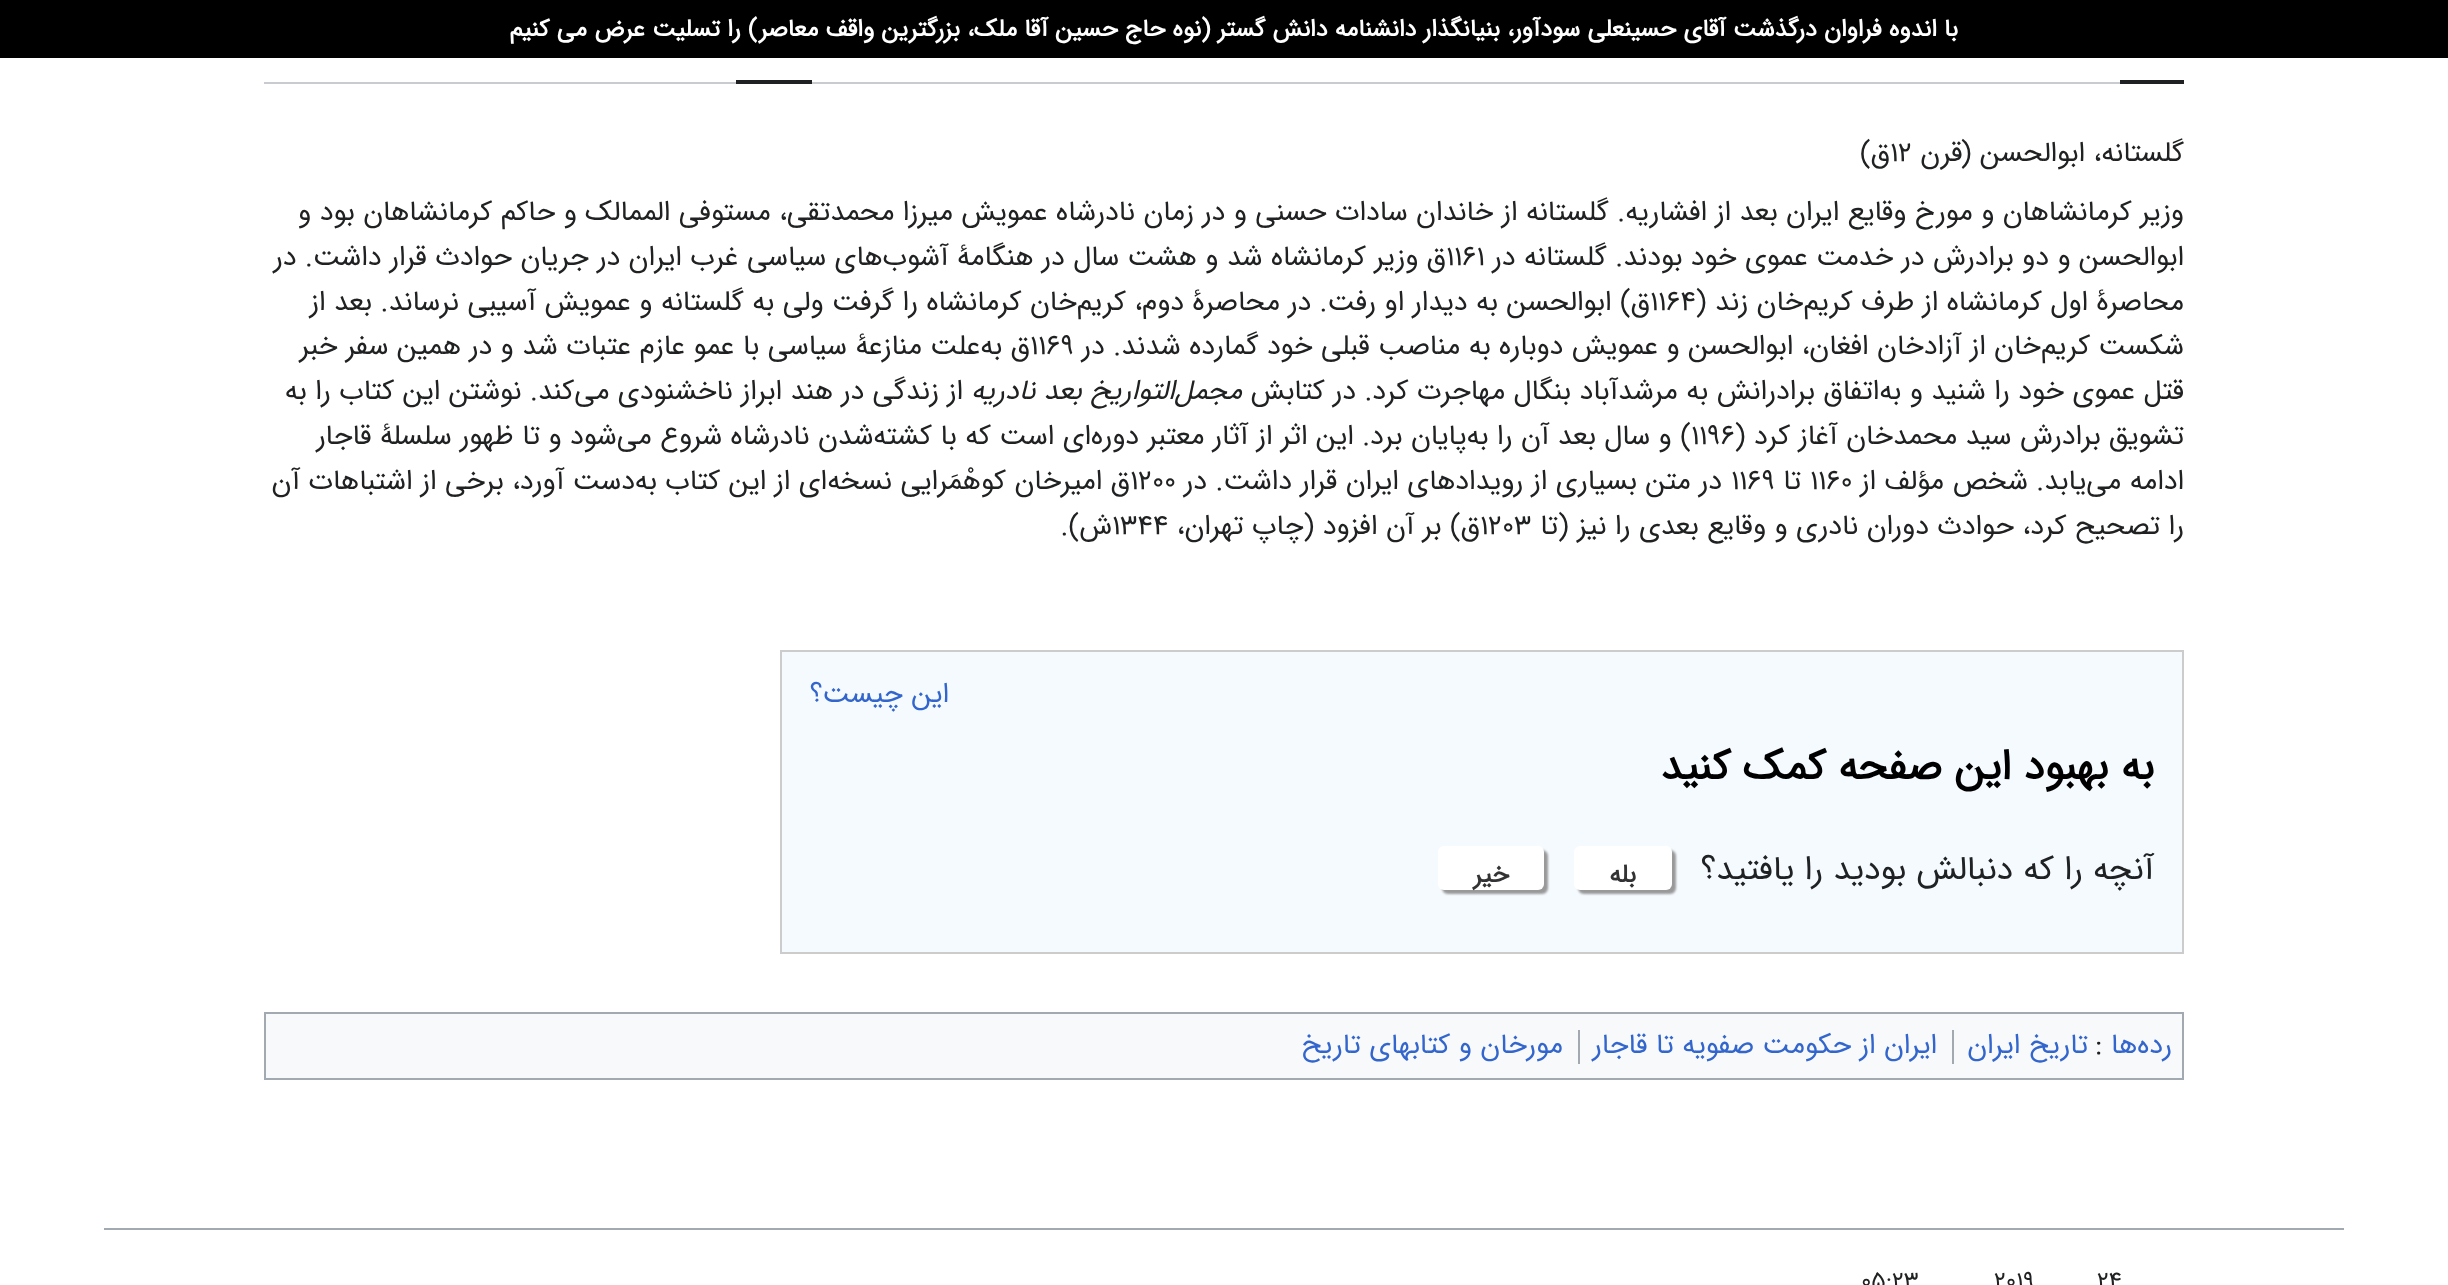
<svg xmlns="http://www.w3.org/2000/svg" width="2448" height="1285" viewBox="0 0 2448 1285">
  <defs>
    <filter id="blur1" x="-50%" y="-200%" width="200%" height="500%"><feGaussianBlur stdDeviation="1"/></filter>
  </defs>
  <rect width="100%" height="100%" fill="#ffffff"/>
  <rect x="0" y="0" width="2448" height="58" fill="#000000"/>
  <text x="1958" y="36" font-family="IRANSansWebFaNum" font-size="24" font-weight="bold" direction="rtl" fill="#ffffff">با اندوه فراوان درگذشت آقای حسینعلی سودآور، بنیانگذار دانشنامه دانش گستر (نوه حاج حسین آقا ملک، بزرگترین واقف معاصر) را تسلیت عرض می کنیم</text>
  <rect x="264" y="82" width="1856" height="2" fill="#c8ccd1"/>
  <rect x="2120" y="80" width="64" height="4" fill="#202122"/>
  <rect x="736" y="80" width="76" height="4" fill="#202122"/>
  <text x="2184" y="161" font-family="IRANSansWebFaNum" font-size="28" direction="rtl" fill="#202122">گلستانه، ابوالحسن (قرن</text>
  <text x="1890" y="161" font-family="IRANSansWebFaNum" font-size="28" fill="#202122">۱۲</text>
  <text x="1890" y="161" font-family="IRANSansWebFaNum" font-size="28" direction="rtl" fill="#202122">ق)</text>
  <text x="2184" y="220" font-family="IRANSansWebFaNum" font-size="28" direction="rtl" fill="#202122">وزیر کرمانشاهان و مورخ وقایع ایران بعد از افشاریه. گلستانه از خاندان سادات حسنی و در زمان نادرشاه عمویش میرزا محمدتقی، مستوفی الممالک و حاکم کرمانشاهان بود و</text>
  <text x="2184" y="265" font-family="IRANSansWebFaNum" font-size="28" direction="rtl" fill="#202122">ابوالحسن و دو برادرش در خدمت عموی خود بودند. گلستانه در</text>
  <text x="1446" y="265" font-family="IRANSansWebFaNum" font-size="28" fill="#202122">۱۱۶۱</text>
  <text x="1446" y="265" font-family="IRANSansWebFaNum" font-size="28" direction="rtl" fill="#202122">ق وزیر کرمانشاه شد و هشت سال در هنگامۀ آشوب‌های سیاسی غرب ایران در جریان حوادث قرار داشت. در</text>
  <text x="2184" y="310" font-family="IRANSansWebFaNum" font-size="28" direction="rtl" fill="#202122">محاصرۀ اول کرمانشاه از طرف کریم‌خان زند (</text>
  <text x="1650" y="310" font-family="IRANSansWebFaNum" font-size="28" fill="#202122">۱۱۶۴</text>
  <text x="1650" y="310" font-family="IRANSansWebFaNum" font-size="28" direction="rtl" fill="#202122">ق) ابوالحسن به دیدار او رفت. در محاصرۀ دوم، کریم‌خان کرمانشاه را گرفت ولی به گلستانه و عمویش آسیبی نرساند. بعد از</text>
  <text x="2184" y="354" font-family="IRANSansWebFaNum" font-size="28" direction="rtl" fill="#202122">شکست کریم‌خان از آزادخان افغان، ابوالحسن و عمویش دوباره به مناصب قبلی خود گمارده شدند. در</text>
  <text x="1030" y="354" font-family="IRANSansWebFaNum" font-size="28" fill="#202122">۱۱۶۹</text>
  <text x="1030" y="354" font-family="IRANSansWebFaNum" font-size="28" direction="rtl" fill="#202122">ق به‌علت منازعۀ سیاسی با عمو عازم عتبات شد و در همین سفر خبر</text>
  <text x="2184" y="399" font-family="IRANSansWebFaNum" font-size="28" direction="rtl" fill="#202122">قتل عموی خود را شنید و به‌اتفاق برادرانش به مرشدآباد بنگال مهاجرت کرد. در کتابش</text>
  <text x="1242" y="399" font-family="IRANSansWebFaNum" font-size="28" font-style="italic" direction="rtl" fill="#202122">مجمل‌التواریخ بعد نادریه</text>
  <text x="963" y="399" font-family="IRANSansWebFaNum" font-size="28" direction="rtl" fill="#202122">از زندگی در هند ابراز ناخشنودی می‌کند. نوشتن این کتاب را به</text>
  <text x="2184" y="444" font-family="IRANSansWebFaNum" font-size="28" direction="rtl" fill="#202122">تشویق برادرش سید محمدخان آغاز کرد (</text>
  <text x="1691" y="444" font-family="IRANSansWebFaNum" font-size="28" fill="#202122">۱۱۹۶</text>
  <text x="1691" y="444" font-family="IRANSansWebFaNum" font-size="28" direction="rtl" fill="#202122">) و سال بعد آن را به‌پایان برد. این اثر از آثار معتبر دوره‌‌ای است که با کشته‌شدن نادرشاه شروع می‌شود و تا ظهور سلسلۀ قاجار</text>
  <text x="2184" y="489" font-family="IRANSansWebFaNum" font-size="28" direction="rtl" fill="#202122">ادامه می‌یابد. شخص مؤلف از</text>
  <text x="1810" y="489" font-family="IRANSansWebFaNum" font-size="28" fill="#202122">۱۱۶۰</text>
  <text x="1801" y="489" font-family="IRANSansWebFaNum" font-size="28" direction="rtl" fill="#202122">تا</text>
  <text x="1731" y="489" font-family="IRANSansWebFaNum" font-size="28" fill="#202122">۱۱۶۹</text>
  <text x="1722" y="489" font-family="IRANSansWebFaNum" font-size="28" direction="rtl" fill="#202122">در متن بسیاری از رویدادهای ایران قرار داشت. در</text>
  <text x="1130" y="489" font-family="IRANSansWebFaNum" font-size="28" fill="#202122">۱۲۰۰</text>
  <text x="1130" y="489" font-family="IRANSansWebFaNum" font-size="28" direction="rtl" fill="#202122">ق امیرخان کوهْمَرایی نسخه‌ای از این کتاب به‌دست آورد، برخی از اشتباهات آن</text>
  <text x="2184" y="534" font-family="IRANSansWebFaNum" font-size="28" direction="rtl" fill="#202122">را تصحیح کرد، حوادث دوران نادری و وقایع بعدی را نیز (تا</text>
  <text x="1480" y="534" font-family="IRANSansWebFaNum" font-size="28" fill="#202122">۱۲۰۳</text>
  <text x="1480" y="534" font-family="IRANSansWebFaNum" font-size="28" direction="rtl" fill="#202122">ق) بر آن افزود (چاپ تهران،</text>
  <text x="1112" y="534" font-family="IRANSansWebFaNum" font-size="28" fill="#202122">۱۳۴۴</text>
  <text x="1112" y="534" font-family="IRANSansWebFaNum" font-size="28" direction="rtl" fill="#202122">ش).</text>
  <rect x="781" y="651" width="1402" height="302" fill="#f5faff" stroke="#cccccc" stroke-width="2"/>
  <text x="949" y="702" font-family="IRANSansWebFaNum" font-size="28" direction="rtl" fill="#3366cc">این چیست؟</text>
  <text x="2154" y="779" font-family="IRANSansWebFaNum" font-size="42" font-weight="bold" direction="rtl" fill="#000000">به بهبود این صفحه کمک کنید</text>
  <text x="2154" y="879" font-family="IRANSansWebFaNum" font-size="33.6" direction="rtl" fill="#202122">آنچه را که دنبالش بودید را یافتید؟</text>
  <rect x="1578" y="850" width="98" height="44" rx="6" fill="#999999" filter="url(#blur1)"/>
  <rect x="1574" y="846" width="98" height="44" rx="6" fill="#ffffff"/>
  <text x="1636" y="882" font-family="IRANSansWebFaNum" font-size="25" font-weight="bold" direction="rtl" fill="#333333">بله</text>
  <rect x="1442" y="850" width="106" height="44" rx="6" fill="#999999" filter="url(#blur1)"/>
  <rect x="1438" y="846" width="106" height="44" rx="6" fill="#ffffff"/>
  <text x="1509" y="882" font-family="IRANSansWebFaNum" font-size="25" font-weight="bold" direction="rtl" fill="#333333">خیر</text>
  <rect x="265" y="1013" width="1918" height="66" fill="#f8f9fa" stroke="#a2a9b1" stroke-width="2"/>
  <text x="2172" y="1053" font-family="IRANSansWebFaNum" font-size="28" direction="rtl" fill="#3366cc">رده‌ها</text>
  <text x="2095" y="1053" font-family="IRANSansWebFaNum" font-size="28" fill="#202122">:</text>
  <text x="2088" y="1053" font-family="IRANSansWebFaNum" font-size="28" direction="rtl" fill="#3366cc">تاریخ ایران</text>
  <rect x="1952" y="1030" width="2" height="34" fill="#a2a9b1"/>
  <text x="1937" y="1053" font-family="IRANSansWebFaNum" font-size="28" direction="rtl" fill="#3366cc">ایران از حکومت صفویه تا قاجار</text>
  <rect x="1578" y="1030" width="2" height="34" fill="#a2a9b1"/>
  <text x="1563" y="1053" font-family="IRANSansWebFaNum" font-size="28" direction="rtl" fill="#3366cc">مورخان و کتابهای تاریخ</text>
  <rect x="104" y="1228" width="2240" height="2" fill="#a2a9b1"/>
  <text x="2097" y="1288" font-family="IRANSansWebFaNum" font-size="24" fill="#202122">۲۴</text>
  <text x="1994" y="1288" font-family="IRANSansWebFaNum" font-size="24" fill="#202122">۲۰۱۹</text>
  <text x="1861" y="1288" font-family="IRANSansWebFaNum" font-size="24" fill="#202122">۰۵:۲۳</text>
</svg>
